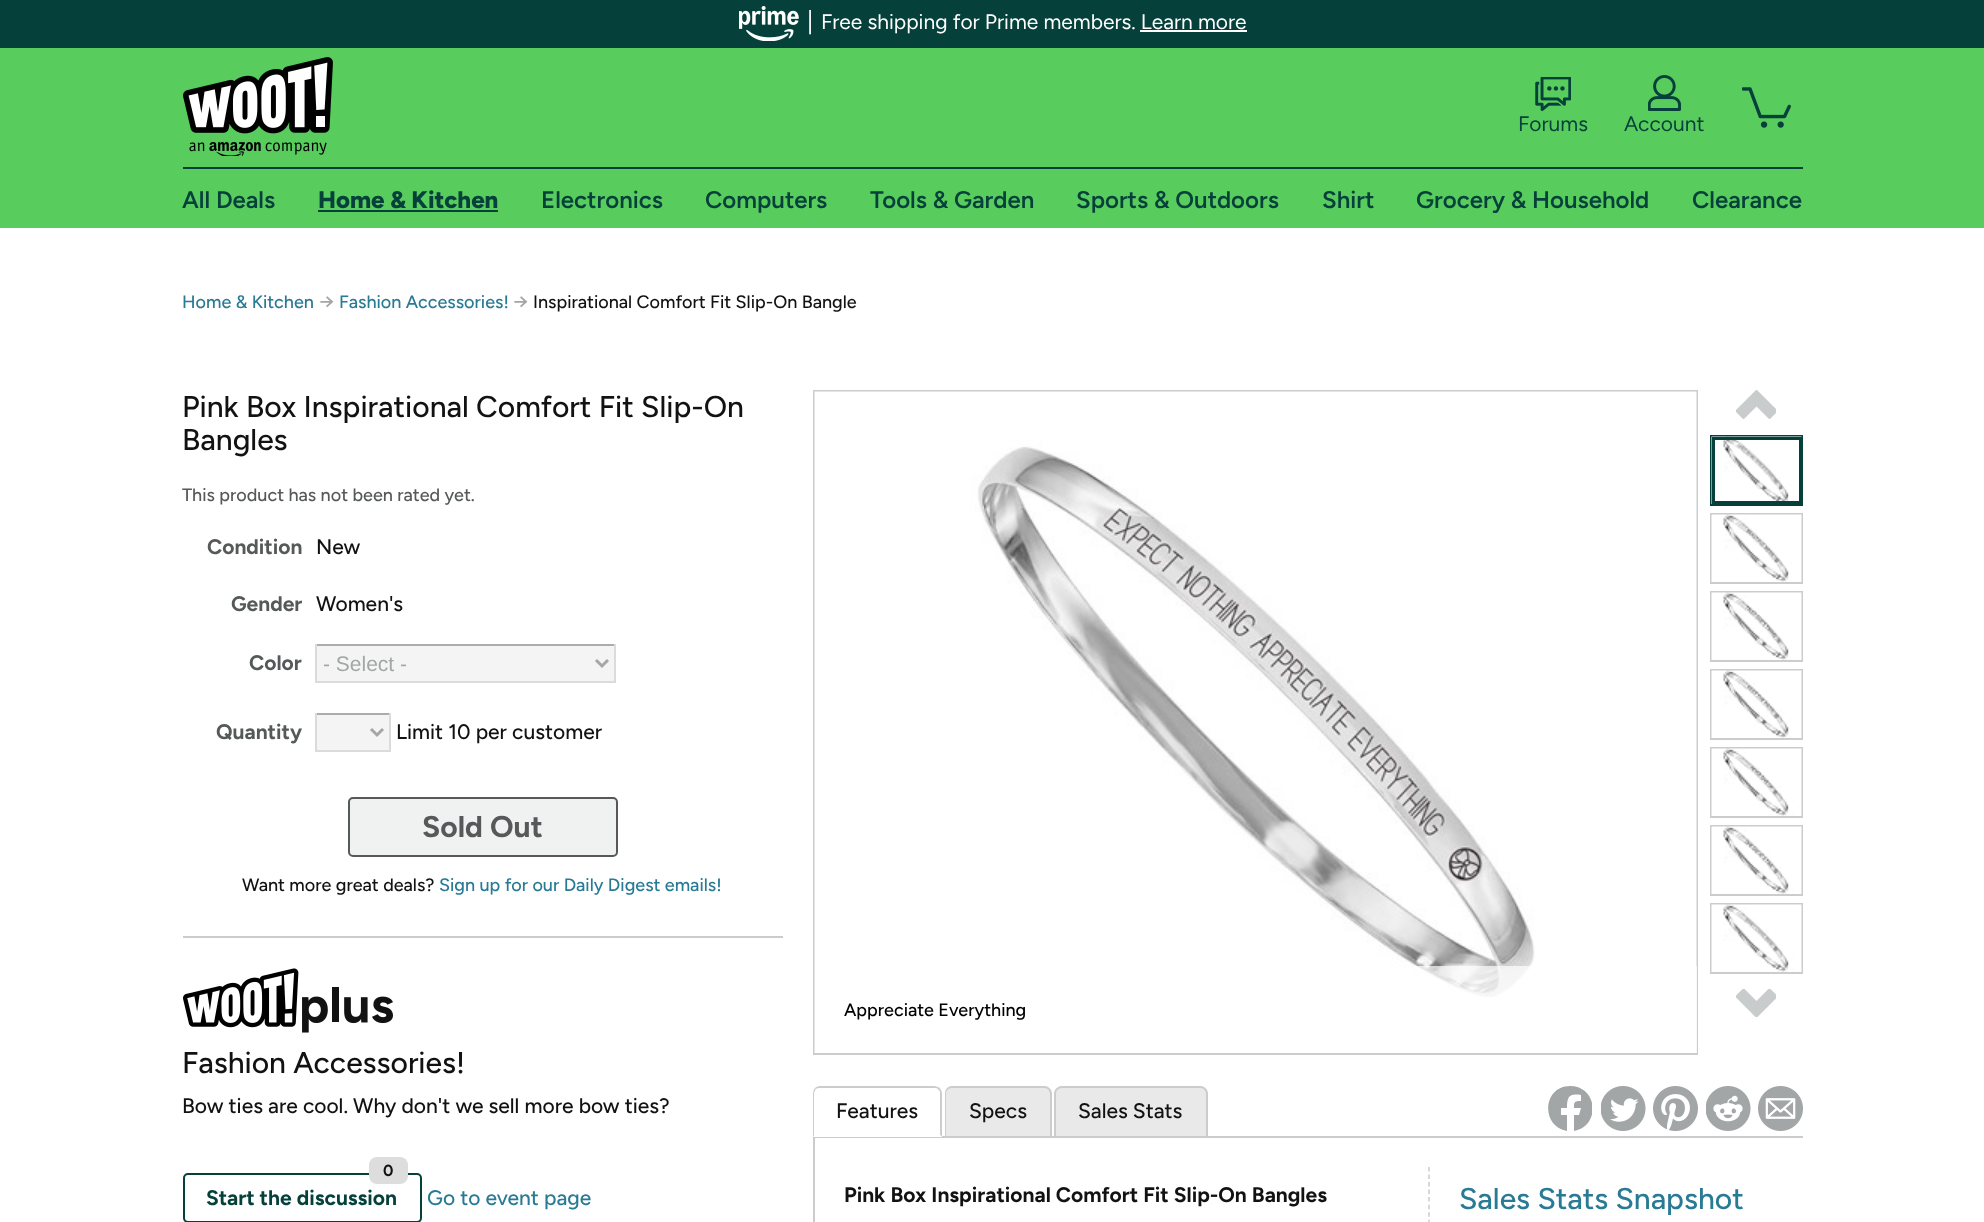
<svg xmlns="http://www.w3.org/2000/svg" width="1984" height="1222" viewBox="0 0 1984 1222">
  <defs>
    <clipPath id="clip1"><rect x="1548" y="1086" width="44" height="45"/></clipPath>
  </defs>
  <rect width="100%" height="100%" fill="#ffffff"/>
  <rect x="0" y="0" width="1984" height="48" fill="#05413a"/>
  <image x="739" y="6" width="60" height="35" href="img1.png"/>
  <text x="807" y="29" font-family="Figtree" font-size="24" fill="#ffffff">|</text>
  <text x="821" y="29" font-family="Figtree" font-size="21" fill="#ffffff">Free shipping for Prime members. Learn more</text>
  <rect x="1140" y="30" width="107" height="2" fill="#ffffff"/>
  <rect x="0" y="48" width="1984" height="180" fill="#58cd5d"/>
  <rect x="183" y="167" width="1620" height="2" fill="#05413a"/>
  <image x="183" y="57" width="150" height="99" href="img2.png"/>
  <image x="1535" y="77" width="36" height="34" href="img3.png"/>
  <text x="1518" y="131" font-family="Figtree" font-size="21" fill="#05413a">Forums</text>
  <image x="1648" y="75" width="33" height="36" href="img4.png"/>
  <text x="1624" y="131" font-family="Figtree" font-size="21" fill="#05413a">Account</text>
  <image x="1742" y="87" width="49" height="41" href="img5.png"/>
  <text x="182" y="208" font-family="Figtree" font-size="24" font-weight="600" fill="#05413a">All Deals</text>
  <text x="318" y="208" font-family="Figtree" font-size="24" font-weight="800" fill="#05413a">Home &amp; Kitchen</text>
  <rect x="318" y="210" width="180" height="2" fill="#05413a"/>
  <text x="541" y="208" font-family="Figtree" font-size="24" font-weight="600" fill="#05413a">Electronics</text>
  <text x="705" y="208" font-family="Figtree" font-size="24" font-weight="600" fill="#05413a">Computers</text>
  <text x="870" y="208" font-family="Figtree" font-size="24" font-weight="600" fill="#05413a">Tools &amp; Garden</text>
  <text x="1076" y="208" font-family="Figtree" font-size="24" font-weight="600" fill="#05413a">Sports &amp; Outdoors</text>
  <text x="1322" y="208" font-family="Figtree" font-size="24" font-weight="600" fill="#05413a">Shirt</text>
  <text x="1416" y="208" font-family="Figtree" font-size="24" font-weight="600" fill="#05413a">Grocery &amp; Household</text>
  <text x="1692" y="208" font-family="Figtree" font-size="24" font-weight="600" fill="#05413a">Clearance</text>
  <text x="182" y="308" font-family="Figtree" font-size="18" font-weight="500" fill="#297a94">Home &amp; Kitchen</text>
  <text x="319" y="308" font-family="Figtree" font-size="21" font-weight="500" fill="#a2a6a6">→</text>
  <text x="339" y="308" font-family="Figtree" font-size="18" font-weight="500" fill="#297a94">Fashion Accessories!</text>
  <text x="513" y="308" font-family="Figtree" font-size="21" font-weight="500" fill="#a2a6a6">→</text>
  <text x="533" y="308" font-family="Figtree" font-size="18" font-weight="500" fill="#121212">Inspirational Comfort Fit Slip-On Bangle</text>
  <rect x="183" y="936" width="600" height="2" fill="#cccccc"/>
  <text x="182" y="417" font-family="Figtree" font-size="30" font-weight="500" fill="#121212">Pink Box Inspirational Comfort Fit Slip-On</text>
  <text x="182" y="450" font-family="Figtree" font-size="30" font-weight="500" fill="#121212">Bangles</text>
  <text x="182" y="501" font-family="Figtree" font-size="18" font-weight="500" fill="#565959">This product has not been rated yet.</text>
  <text x="207" y="554" font-family="Figtree" font-size="21" font-weight="bold" fill="#565959">Condition</text>
  <text x="316" y="554" font-family="Figtree" font-size="21" font-weight="500" fill="#121212">New</text>
  <text x="231" y="611" font-family="Figtree" font-size="21" font-weight="bold" fill="#565959">Gender</text>
  <text x="316" y="611" font-family="Figtree" font-size="21" font-weight="500" fill="#121212">Women's</text>
  <text x="249" y="670" font-family="Figtree" font-size="21" font-weight="bold" fill="#565959">Color</text>
  <rect x="317" y="646" width="297" height="35" fill="#f4f4f4"/>
  <rect x="315" y="644" width="300" height="2" fill="#acacac"/>
  <rect x="614" y="644" width="2" height="39" fill="#dbdbdb"/>
  <rect x="315" y="681" width="300" height="2" fill="#dbdbdb"/>
  <rect x="315" y="644" width="2" height="39" fill="#dbdbdb"/>
  <path d="M596 660L602 666L608 660" fill="none" stroke="#a6a6a6" stroke-width="3"/>
  <text x="323" y="671" font-family="Liberation Sans" font-size="21" fill="#a2a6a6">- Select -</text>
  <text x="216" y="739" font-family="Figtree" font-size="21" font-weight="bold" fill="#565959">Quantity</text>
  <rect x="317" y="715" width="72" height="35" fill="#f4f4f4"/>
  <rect x="315" y="713" width="75" height="2" fill="#acacac"/>
  <rect x="389" y="713" width="2" height="39" fill="#dbdbdb"/>
  <rect x="315" y="750" width="75" height="2" fill="#dbdbdb"/>
  <rect x="315" y="713" width="2" height="39" fill="#dbdbdb"/>
  <path d="M371 729L377 735L383 729" fill="none" stroke="#a6a6a6" stroke-width="3"/>
  <text x="396" y="739" font-family="Figtree" font-size="21" font-weight="500" fill="#121212">Limit 10 per customer</text>
  <rect x="349" y="798" width="268" height="58" rx="4" fill="#f0f2f2" stroke="#565959" stroke-width="2"/>
  <text x="422" y="837" font-family="Figtree" font-size="30" font-weight="bold" fill="#565959">Sold Out</text>
  <text x="242" y="891" font-family="Figtree" font-size="18" font-weight="500" fill="#121212">Want more great deals?</text>
  <text x="439" y="891" font-family="Figtree" font-size="18" font-weight="500" fill="#297a94">Sign up for our Daily Digest emails!</text>
  <image x="183" y="968" width="210" height="65" href="img6.png"/>
  <text x="182" y="1073" font-family="Figtree" font-size="30" font-weight="500" fill="#121212">Fashion Accessories!</text>
  <text x="182" y="1113" font-family="Figtree" font-size="21" font-weight="500" fill="#121212">Bow ties are cool. Why don't we sell more bow ties?</text>
  <rect x="184" y="1174" width="237" height="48" rx="4" fill="none" stroke="#05413a" stroke-width="2"/>
  <rect x="369" y="1157" width="39" height="27" rx="8" fill="#dddddd"/>
  <text x="383" y="1176" font-family="Figtree" font-size="16" font-weight="bold" fill="#121212">0</text>
  <text x="206" y="1205" font-family="Figtree" font-size="21" font-weight="bold" fill="#05413a">Start the discussion</text>
  <text x="427" y="1205" font-family="Figtree" font-size="21" font-weight="500" fill="#297a94">Go to event page</text>
  <rect x="814" y="391" width="883" height="663" fill="none" stroke="#cccccc" stroke-width="2"/>
  <image x="814" y="391" width="883" height="662" href="img7.png"/>
  <rect x="1415" y="966" width="282" height="87" fill="#ffffff" fill-opacity="0.7"/>
  <text x="844" y="1016" font-family="Figtree" font-size="18" font-weight="500" fill="#000000">Appreciate Everything</text>
  <image x="1736" y="390" width="40" height="29" href="img8.png"/>
  <rect x="1711" y="436" width="91" height="69" fill="none" stroke="#05413a" stroke-width="2"/>
  <image x="1711" y="436" width="91" height="68" href="img9.png"/>
  <rect x="1713.5" y="438.5" width="87" height="64" fill="none" stroke="#05413a" stroke-width="3"/>
  <rect x="1711" y="514" width="91" height="69" fill="none" stroke="#cccccc" stroke-width="2"/>
  <image x="1711" y="514" width="91" height="68" href="img10.png"/>
  <rect x="1711" y="592" width="91" height="69" fill="none" stroke="#cccccc" stroke-width="2"/>
  <image x="1711" y="592" width="91" height="68" href="img11.png"/>
  <rect x="1711" y="670" width="91" height="69" fill="none" stroke="#cccccc" stroke-width="2"/>
  <image x="1711" y="670" width="91" height="68" href="img12.png"/>
  <rect x="1711" y="748" width="91" height="69" fill="none" stroke="#cccccc" stroke-width="2"/>
  <image x="1711" y="748" width="91" height="68" href="img13.png"/>
  <rect x="1711" y="826" width="91" height="69" fill="none" stroke="#cccccc" stroke-width="2"/>
  <image x="1711" y="826" width="91" height="68" href="img14.png"/>
  <rect x="1711" y="904" width="91" height="69" fill="none" stroke="#cccccc" stroke-width="2"/>
  <image x="1711" y="904" width="91" height="68" href="img15.png"/>
  <image x="1736" y="989" width="40" height="28" href="img16.png"/>
  <g clip-path="url(#clip1)">
    <path d="M1570 1086C1543 1086 1540 1126 1567 1131V1115H1561V1108H1567C1567 1097 1569 1093 1581 1095V1101C1574 1101 1574 1102 1574 1108H1581L1579 1115H1574V1131C1601 1126 1598 1086 1570 1086" fill="#a2a6a6"/>
  </g>
  <image x="1601" y="1086" width="45" height="45" href="img17.png"/>
  <image x="1653" y="1086" width="45" height="45" href="img18.png"/>
  <image x="1706" y="1086" width="45" height="45" href="img19.png"/>
  <image x="1758" y="1086" width="45" height="45" href="img20.png"/>
  <rect x="813" y="1137" width="2" height="85" fill="#cccccc"/>
  <rect x="813" y="1136" width="990" height="2" fill="#cccccc"/>
  <path d="M821 1086H934C938.5 1086 942 1089.5 942 1094V1137H813V1094C813 1089.5 816.5 1086 821 1086Z" fill="#ffffff"/>
  <path d="M820 1086C818 1086 816 1087 815 1088L816 1089C817 1088 819 1088 820 1088H934C936 1088 938 1088 938 1090L940 1088C938 1087 936 1086 934 1086Z" fill="#cccccc"/>
  <path d="M942 1137V1094C942 1092 941 1090 940 1088L938 1090C940 1090 940 1092 940 1094V1135Z" fill="#cccccc"/>
  <path d="M942 1137L940 1135V1136H814L813 1137Z" fill="#ffffff"/>
  <path d="M813 1137L814 1136V1094C814 1092 815 1090 816 1089L815 1088C814 1089 813 1091 813 1094Z" fill="#cccccc"/>
  <text x="836" y="1118" font-family="Figtree" font-size="21" font-weight="500" fill="#121212">Features</text>
  <path d="M953 1086H1044C1048.5 1086 1052 1089.5 1052 1094V1136H945V1094C945 1089.5 948.5 1086 953 1086Z" fill="#e9e9e9"/>
  <path d="M952 1086H1044C1048 1086 1052 1089 1052 1094V1136H945V1094C945 1089 948 1086 952 1086ZM952 1088H1044C1047 1088 1050 1090 1050 1094V1136H946V1094C946 1090 949 1088 952 1088Z" fill="#cccccc" fill-rule="evenodd"/>
  <text x="969" y="1118" font-family="Figtree" font-size="21" font-weight="500" fill="#121212">Specs</text>
  <path d="M1063 1086H1200C1204.5 1086 1208 1089.5 1208 1094V1136H1055V1094C1055 1089.5 1058.5 1086 1063 1086Z" fill="#e9e9e9"/>
  <path d="M1062 1086H1200C1204 1086 1208 1089 1208 1094V1136H1054V1094C1054 1089 1058 1086 1062 1086ZM1062 1088H1200C1203 1088 1206 1090 1206 1094V1136H1056V1094C1056 1090 1059 1088 1062 1088Z" fill="#cccccc" fill-rule="evenodd"/>
  <text x="1078" y="1118" font-family="Figtree" font-size="21" font-weight="500" fill="#121212">Sales Stats</text>
  <text x="844" y="1202" font-family="Figtree" font-size="21" font-weight="bold" fill="#121212">Pink Box Inspirational Comfort Fit Slip-On Bangles</text>
  <path d="M1429 1167V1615.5" fill="none" stroke="#cccccc" stroke-width="1.5" stroke-dasharray="4.5 3.03"/>
  <text x="1459" y="1209" font-family="Figtree" font-size="30" font-weight="500" fill="#297a94">Sales Stats Snapshot</text>
</svg>
